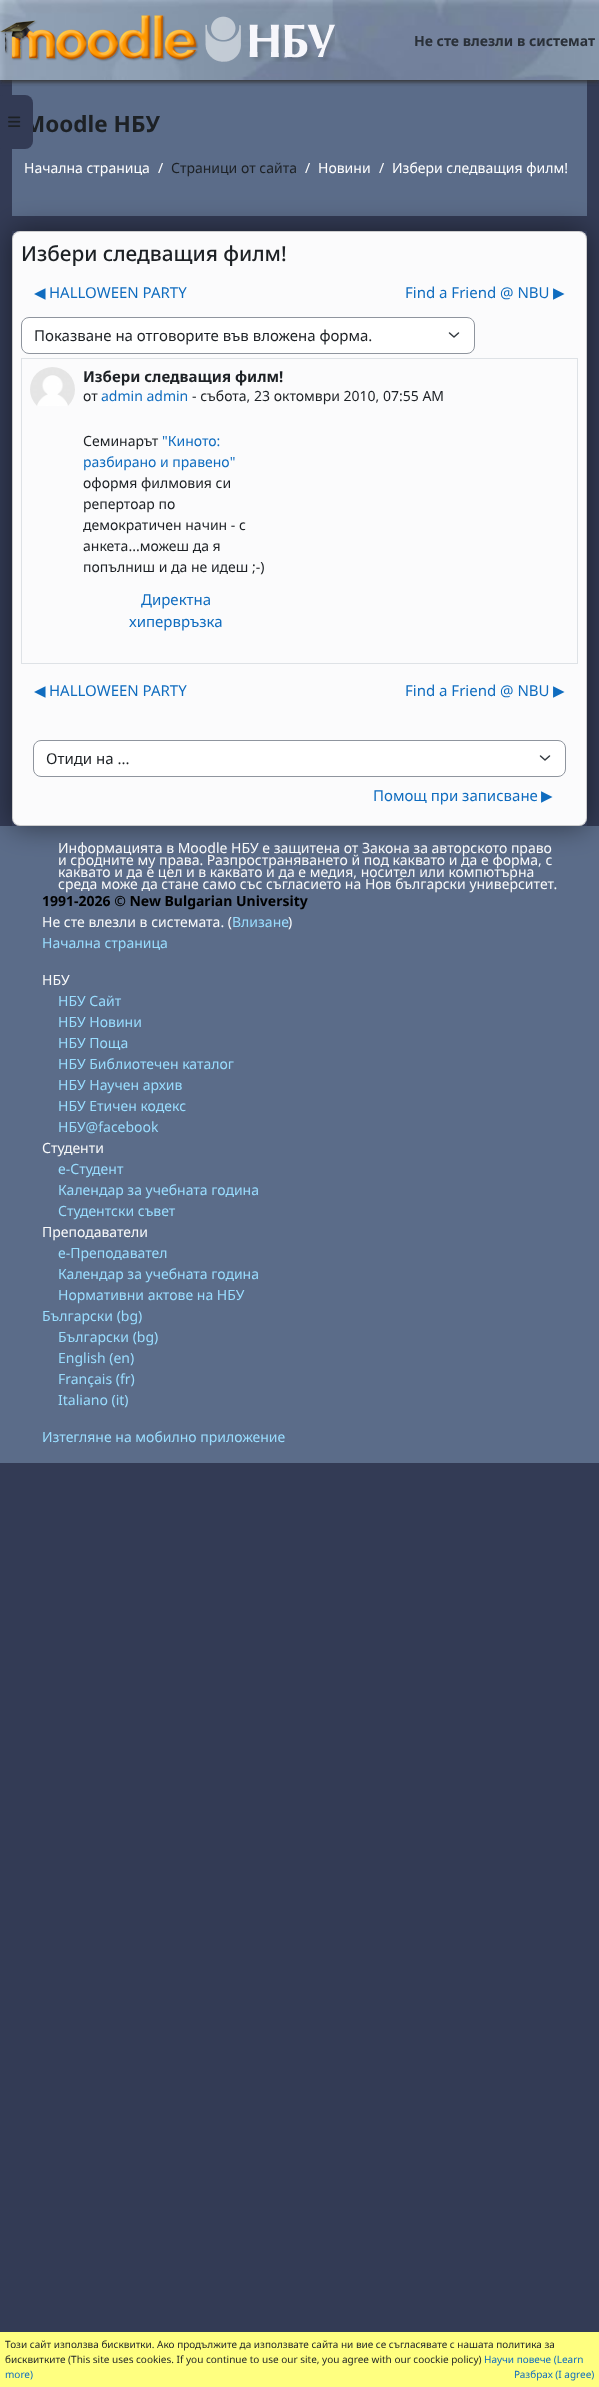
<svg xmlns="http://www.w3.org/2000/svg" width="599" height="2387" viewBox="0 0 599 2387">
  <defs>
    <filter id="blur1" x="-50%" y="-200%" width="200%" height="500%"><feGaussianBlur stdDeviation="2"/></filter>
    <clipPath id="clip1"><path d="M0 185H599V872H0ZM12 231H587V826H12Z" clip-rule="evenodd"/></clipPath>
    <filter id="blur2" x="-50%" y="-200%" width="200%" height="500%"><feGaussianBlur stdDeviation="15"/></filter>
  </defs>
  <rect width="100%" height="100%" fill="#333b55"/>
  <rect x="12" y="80" width="575" height="136" fill="#5b6c89"/>
  <rect x="0" y="2" width="599" height="80" fill="#333333" filter="url(#blur1)"/>
  <image x="0" y="0" width="599" height="80" href="img1.png"/>
  <image x="0" y="15" width="335" height="47" href="img2.png"/>
  <text x="414" y="46" font-family="Noto Sans" font-size="14" font-weight="bold" fill="#2a3038">Не сте влезли в системат</text>
  <text x="24" y="132" font-family="Noto Sans" font-size="22.5" font-weight="bold" fill="#1d2125">Moodle НБУ</text>
  <rect x="-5" y="95" width="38" height="54" rx="8" fill="#333b55"/>
  <image x="8" y="116" width="13" height="11" href="img3.png"/>
  <text x="24" y="173" font-family="Noto Sans" font-size="14" fill="#ffffff">Начална страница</text>
  <text x="158" y="173" font-family="Noto Sans" font-size="14" fill="#ffffff">/</text>
  <text x="171" y="173" font-family="Noto Sans" font-size="14" fill="#1d2125">Страници от сайта</text>
  <text x="305" y="173" font-family="Noto Sans" font-size="14" fill="#ffffff">/</text>
  <text x="318" y="173" font-family="Noto Sans" font-size="14" fill="#ffffff">Новини</text>
  <text x="379" y="173" font-family="Noto Sans" font-size="14" fill="#ffffff">/</text>
  <text x="392" y="173" font-family="Noto Sans" font-size="14" fill="#ffffff">Избери следващия филм!</text>
  <rect x="0" y="826" width="599" height="637" fill="#5b6c89"/>
  <g clip-path="url(#clip1)">
    <rect x="12" y="231" width="575" height="595" fill="#000000" fill-opacity="0.5" filter="url(#blur2)"/>
  </g>
  <rect x="12" y="231" width="575" height="595" rx="8" fill="#fbfbfc"/>
  <rect x="12.5" y="231.5" width="574" height="594" rx="7.5" fill="none" stroke="#000000" stroke-opacity="0.18"/>
  <text x="21" y="261" font-family="Noto Sans" font-size="20.75" font-weight="500" fill="#1d2125">Избери следващия филм!</text>
  <text x="34" y="298" font-family="DejaVu Sans" font-size="15" fill="#0f6cbf">◀︎</text>
  <text x="49" y="298" font-family="Noto Sans" font-size="15" fill="#0f6cbf">HALLOWEEN PARTY</text>
  <text x="405" y="298" font-family="Noto Sans" font-size="15" fill="#0f6cbf">Find a Friend @ NBU</text>
  <text x="553" y="298" font-family="DejaVu Sans" font-size="15" fill="#0f6cbf">▶︎</text>
  <rect x="21" y="317" width="454" height="37" rx="8" fill="#ffffff"/>
  <path d="M449.5 333L454 337L458.5 333" fill="none" stroke="#343a40" stroke-width="1.5" stroke-linecap="round" stroke-linejoin="round"/>
  <rect x="21.5" y="317.5" width="453" height="36" rx="7.5" fill="none" stroke="#8f959e"/>
  <text x="34" y="341" font-family="Noto Sans" font-size="15" fill="#1d2125">Показване на отговорите във вложена форма.</text>
  <rect x="21.5" y="358.5" width="556" height="305" fill="none" stroke="#dee2e6"/>
  <image x="30" y="367" width="45" height="39" href="img4.png"/>
  <text x="83" y="382" font-family="Noto Sans" font-size="15" font-weight="bold" fill="#1d2125">Избери следващия филм!</text>
  <text x="83" y="401" font-family="Noto Sans" font-size="14" fill="#1d2125">от</text>
  <text x="101" y="401" font-family="Noto Sans" font-size="14" fill="#0f6cbf">admin admin</text>
  <text x="192" y="401" font-family="Noto Sans" font-size="14" fill="#1d2125">- събота, 23 октомври 2010, 07:55 AM</text>
  <text x="83" y="446" font-family="Noto Sans" font-size="14" fill="#1d2125">Семинарът</text>
  <text x="162" y="446" font-family="Noto Sans" font-size="14" fill="#0f6cbf">"Киното:</text>
  <text x="83" y="467" font-family="Noto Sans" font-size="14" fill="#0f6cbf">разбирано и правено"</text>
  <text x="83" y="488" font-family="Noto Sans" font-size="14" fill="#1d2125">оформя филмовия си</text>
  <text x="83" y="509" font-family="Noto Sans" font-size="14" fill="#1d2125">репертоар по</text>
  <text x="83" y="530" font-family="Noto Sans" font-size="14" fill="#1d2125">демократичен начин - с</text>
  <text x="83" y="551" font-family="Noto Sans" font-size="14" fill="#1d2125">анкета...можеш да я</text>
  <text x="83" y="572" font-family="Noto Sans" font-size="14" fill="#1d2125">попълниш и да не идеш ;-)</text>
  <text x="141" y="605" font-family="Noto Sans" font-size="15" fill="#0f6cbf">Директна</text>
  <text x="129" y="627" font-family="Noto Sans" font-size="15" fill="#0f6cbf">хипервръзка</text>
  <text x="34" y="696" font-family="DejaVu Sans" font-size="15" fill="#0f6cbf">◀︎</text>
  <text x="49" y="696" font-family="Noto Sans" font-size="15" fill="#0f6cbf">HALLOWEEN PARTY</text>
  <text x="405" y="696" font-family="Noto Sans" font-size="15" fill="#0f6cbf">Find a Friend @ NBU</text>
  <text x="553" y="696" font-family="DejaVu Sans" font-size="15" fill="#0f6cbf">▶︎</text>
  <rect x="33" y="740" width="533" height="37" rx="8" fill="#ffffff"/>
  <path d="M540.5 756L545 760L549.5 756" fill="none" stroke="#343a40" stroke-width="1.5" stroke-linecap="round" stroke-linejoin="round"/>
  <rect x="33.5" y="740.5" width="532" height="36" rx="7.5" fill="none" stroke="#8f959e"/>
  <text x="46" y="764" font-family="Noto Sans" font-size="15" fill="#1d2125">Отиди на ...</text>
  <text x="373" y="801" font-family="Noto Sans" font-size="15" fill="#0f6cbf">Помощ при записване</text>
  <text x="541" y="801" font-family="DejaVu Sans" font-size="15" fill="#0f6cbf">▶︎</text>
  <text x="58" y="853" font-family="Noto Sans" font-size="14" fill="#f8f9fa">Информацията в Moodle НБУ е защитена от Закона за авторското право</text>
  <text x="58" y="865" font-family="Noto Sans" font-size="14" fill="#f8f9fa">и сродните му права. Разпространяването й под каквато и да е форма, с</text>
  <text x="58" y="877" font-family="Noto Sans" font-size="14" fill="#f8f9fa">каквато и да е цел и в каквато и да е медия, носител или компютърна</text>
  <text x="58" y="889" font-family="Noto Sans" font-size="14" fill="#f8f9fa">среда може да стане само със съгласието на Нов български университет.</text>
  <text x="42" y="906" font-family="Noto Sans" font-size="14" font-weight="bold" fill="#000000">1991-2026 © New Bulgarian University</text>
  <text x="42" y="927" font-family="Noto Sans" font-size="14" fill="#f8f9fa">Не сте влезли в системата. (</text>
  <text x="232" y="927" font-family="Noto Sans" font-size="14" fill="#99ddff">Влизане</text>
  <text x="288" y="927" font-family="Noto Sans" font-size="14" fill="#f8f9fa">)</text>
  <text x="42" y="948" font-family="Noto Sans" font-size="14" fill="#99ddff">Начална страница</text>
  <text x="42" y="985" font-family="Noto Sans" font-size="14" fill="#f8f9fa">НБУ</text>
  <text x="58" y="1006" font-family="Noto Sans" font-size="14" fill="#99ddff">НБУ Сайт</text>
  <text x="58" y="1027" font-family="Noto Sans" font-size="14" fill="#99ddff">НБУ Новини</text>
  <text x="58" y="1048" font-family="Noto Sans" font-size="14" fill="#99ddff">НБУ Поща</text>
  <text x="58" y="1069" font-family="Noto Sans" font-size="14" fill="#99ddff">НБУ Библиотечен каталог</text>
  <text x="58" y="1090" font-family="Noto Sans" font-size="14" fill="#99ddff">НБУ Научен архив</text>
  <text x="58" y="1111" font-family="Noto Sans" font-size="14" fill="#99ddff">НБУ Етичен кодекс</text>
  <text x="58" y="1132" font-family="Noto Sans" font-size="14" fill="#99ddff">НБУ@facebook</text>
  <text x="42" y="1153" font-family="Noto Sans" font-size="14" fill="#f8f9fa">Студенти</text>
  <text x="58" y="1174" font-family="Noto Sans" font-size="14" fill="#99ddff">е-Студент</text>
  <text x="58" y="1195" font-family="Noto Sans" font-size="14" fill="#99ddff">Календар за учебната година</text>
  <text x="58" y="1216" font-family="Noto Sans" font-size="14" fill="#99ddff">Студентски съвет</text>
  <text x="42" y="1237" font-family="Noto Sans" font-size="14" fill="#f8f9fa">Преподаватели</text>
  <text x="58" y="1258" font-family="Noto Sans" font-size="14" fill="#99ddff">е-Преподавател</text>
  <text x="58" y="1279" font-family="Noto Sans" font-size="14" fill="#99ddff">Календар за учебната година</text>
  <text x="58" y="1300" font-family="Noto Sans" font-size="14" fill="#99ddff">Нормативни актове на НБУ</text>
  <text x="42" y="1321" font-family="Noto Sans" font-size="14" fill="#99ddff">Български (bg)</text>
  <text x="58" y="1342" font-family="Noto Sans" font-size="14" fill="#99ddff">Български (bg)</text>
  <text x="58" y="1363" font-family="Noto Sans" font-size="14" fill="#99ddff">English (en)</text>
  <text x="58" y="1384" font-family="Noto Sans" font-size="14" fill="#99ddff">Français (fr)</text>
  <text x="58" y="1405" font-family="Noto Sans" font-size="14" fill="#99ddff">Italiano (it)</text>
  <text x="42" y="1442" font-family="Noto Sans" font-size="14" fill="#99ddff">Изтегляне на мобилно приложение</text>
  <rect x="0" y="2332" width="599" height="55" fill="#ffff80"/>
  <text x="5" y="2348" font-family="Noto Sans" font-size="10" fill="#1d2125">Този сайт използва бисквитки. Ако продължите да използвате сайта ни вие се съгласявате с нашата политика за</text>
  <text x="5" y="2363" font-family="Noto Sans" font-size="10" fill="#1d2125">бисквитките (This site uses cookies. If you continue to use our site, you agree with our coockie policy)</text>
  <text x="484" y="2363" font-family="Noto Sans" font-size="10" fill="#0f6cbf">Научи повече (Learn</text>
  <text x="5" y="2378" font-family="Noto Sans" font-size="10" fill="#0f6cbf">more)</text>
  <text x="514" y="2378" font-family="Noto Sans" font-size="10" fill="#0f6cbf">Разбрах (I agree)</text>
</svg>
